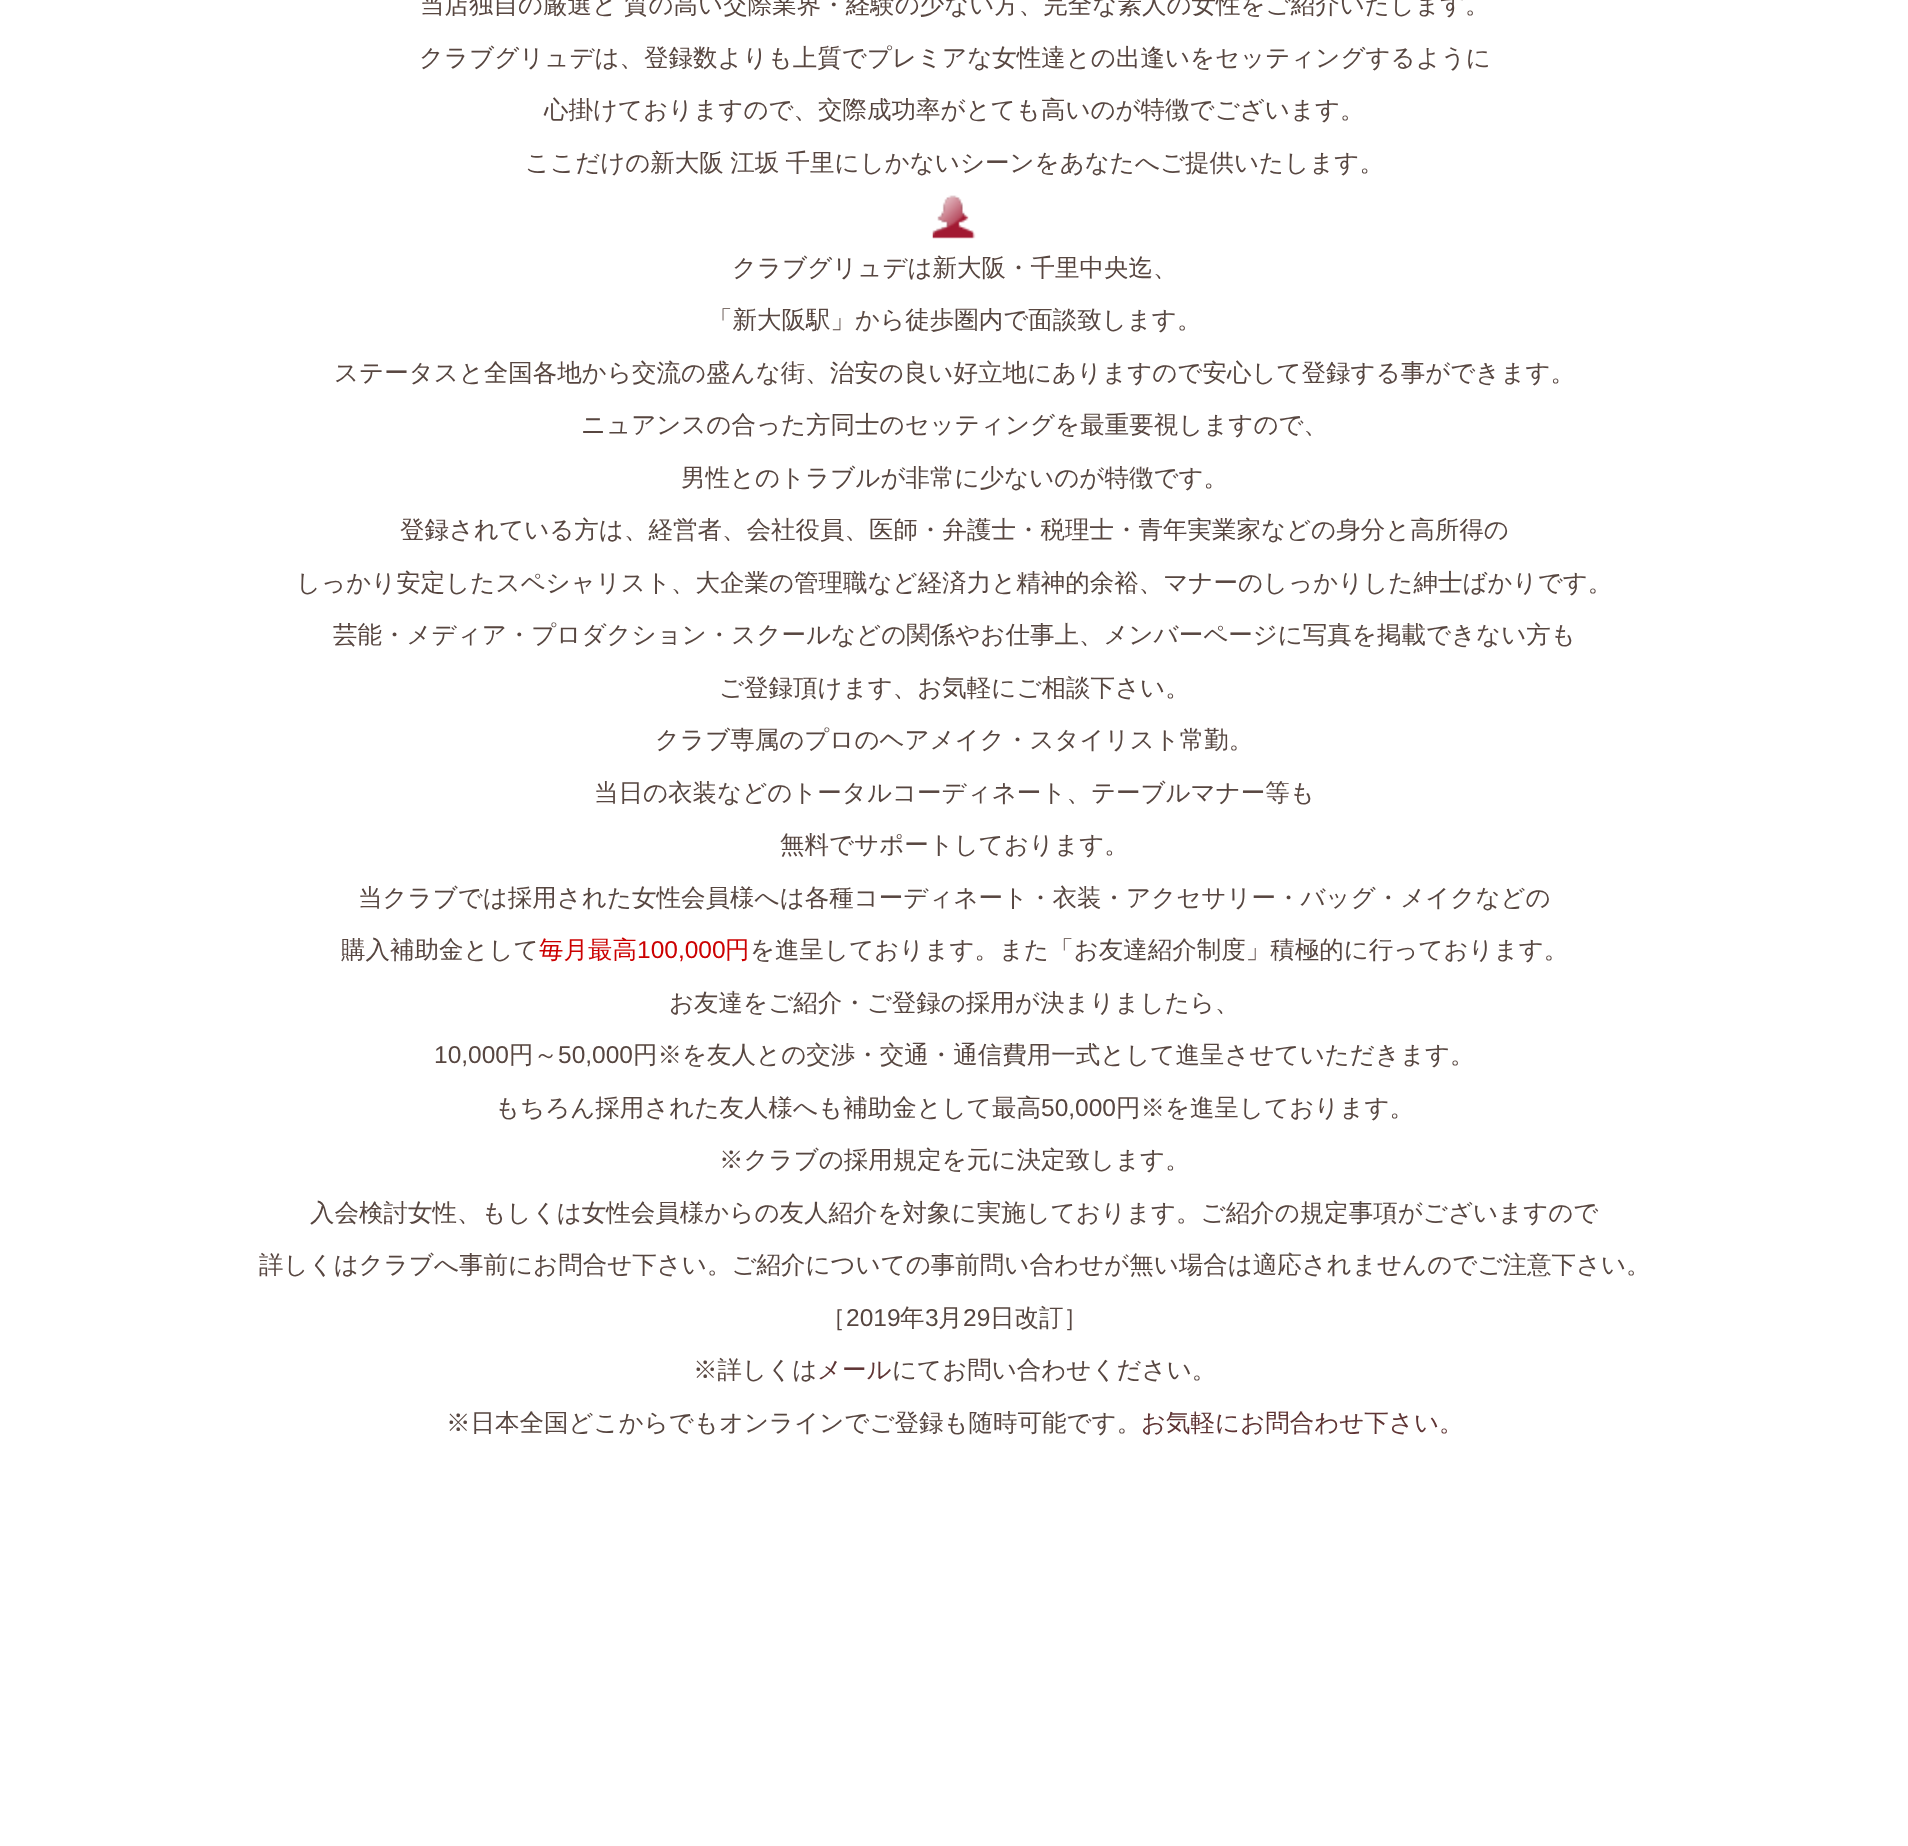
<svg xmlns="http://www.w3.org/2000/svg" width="1908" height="1846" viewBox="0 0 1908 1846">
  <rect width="100%" height="100%" fill="#ffffff"/>
  <text x="420" y="13" font-family="WenQuanYi Zen Hei" font-size="24.5" font-weight="500" fill="#574640">当店独自の厳選と</text>
  <text x="624" y="13" font-family="WenQuanYi Zen Hei" font-size="24.5" font-weight="500" fill="#574640">質の高い交際業界・経験の少ない方、完全な素人の女性をご紹介いたします。</text>
  <text x="419" y="66" font-family="WenQuanYi Zen Hei" font-size="24.5" font-weight="500" fill="#574640">クラブグリュデは、登録数よりも上質でプレミアな女性達との出逢いをセッティングするように</text>
  <text x="544" y="118" font-family="WenQuanYi Zen Hei" font-size="24.5" font-weight="500" fill="#574640">心掛けておりますので、交際成功率がとても高いのが特徴でございます。</text>
  <text x="525" y="171" word-spacing="-1" font-family="WenQuanYi Zen Hei" font-size="24.5" font-weight="500" fill="#574640">ここだけの新大阪 江坂 千里にしかないシーンをあなたへご提供いたします。</text>
  <image x="932" y="195" width="44" height="44" href="img1.png"/>
  <text x="732" y="276" font-family="WenQuanYi Zen Hei" font-size="24.5" font-weight="500" fill="#574640">クラブグリュデは新大阪・千里中央迄、</text>
  <text x="708" y="328" font-family="WenQuanYi Zen Hei" font-size="24.5" font-weight="500" fill="#574640">「新大阪駅」から徒歩圏内で面談致します。</text>
  <text x="334" y="381" font-family="WenQuanYi Zen Hei" font-size="24.5" font-weight="500" fill="#574640">ステータスと全国各地から交流の盛んな街、治安の良い好立地にありますので安心して登録する事ができます。</text>
  <text x="581" y="433" font-family="WenQuanYi Zen Hei" font-size="24.5" font-weight="500" fill="#574640">ニュアンスの合った方同士のセッティングを最重要視しますので、</text>
  <text x="681" y="486" font-family="WenQuanYi Zen Hei" font-size="24.5" font-weight="500" fill="#574640">男性とのトラブルが非常に少ないのが特徴です。</text>
  <text x="400" y="538" font-family="WenQuanYi Zen Hei" font-size="24.5" font-weight="500" fill="#574640">登録されている方は、経営者、会社役員、医師・弁護士・税理士・青年実業家などの身分と高所得の</text>
  <text x="296" y="591" font-family="WenQuanYi Zen Hei" font-size="24.5" font-weight="500" fill="#574640">しっかり安定したスペシャリスト、大企業の管理職など経済力と精神的余裕、マナーのしっかりした紳士ばかりです。</text>
  <text x="333" y="643" font-family="WenQuanYi Zen Hei" font-size="24.5" font-weight="500" fill="#574640">芸能・メディア・プロダクション・スクールなどの関係やお仕事上、メンバーページに写真を掲載できない方も</text>
  <text x="719" y="696" font-family="WenQuanYi Zen Hei" font-size="24.5" font-weight="500" fill="#574640">ご登録頂けます、お気軽にご相談下さい。</text>
  <text x="655" y="748" font-family="WenQuanYi Zen Hei" font-size="24.5" font-weight="500" fill="#574640">クラブ専属のプロのヘアメイク・スタイリスト常勤。</text>
  <text x="594" y="801" font-family="WenQuanYi Zen Hei" font-size="24.5" font-weight="500" fill="#574640">当日の衣装などのトータルコーディネート、テーブルマナー等も</text>
  <text x="780" y="853" font-family="WenQuanYi Zen Hei" font-size="24.5" font-weight="500" fill="#574640">無料でサポートしております。</text>
  <text x="358" y="906" font-family="WenQuanYi Zen Hei" font-size="24.5" font-weight="500" fill="#574640">当クラブでは採用された女性会員様へは各種コーディネート・衣装・アクセサリー・バッグ・メイクなどの</text>
  <text x="341" y="958" font-family="WenQuanYi Zen Hei" font-size="24.5" font-weight="500" fill="#574640">購入補助金として</text>
  <text x="539" y="958" font-family="WenQuanYi Zen Hei" font-size="24.5" font-weight="500" fill="#cc0000">毎月最高</text>
  <text x="637" y="958" font-family="Liberation Sans" font-size="24.5" fill="#cc0000">100,000</text>
  <text x="725" y="958" font-family="WenQuanYi Zen Hei" font-size="24.5" font-weight="500" fill="#cc0000">円</text>
  <text x="750" y="958" font-family="WenQuanYi Zen Hei" font-size="24.5" font-weight="500" fill="#574640">を進呈しております。また「お友達紹介制度」積極的に行っております。</text>
  <text x="669" y="1011" font-family="WenQuanYi Zen Hei" font-size="24.5" font-weight="500" fill="#574640">お友達をご紹介・ご登録の採用が決まりましたら、</text>
  <text x="434" y="1063" font-family="Liberation Sans" font-size="24.5" fill="#574640">10,000</text>
  <text x="509" y="1063" font-family="WenQuanYi Zen Hei" font-size="24.5" font-weight="500" fill="#574640">円～</text>
  <text x="558" y="1063" font-family="Liberation Sans" font-size="24.5" fill="#574640">50,000</text>
  <text x="633" y="1063" font-family="WenQuanYi Zen Hei" font-size="24.5" font-weight="500" fill="#574640">円※を友人との交渉・交通・通信費用一式として進呈させていただきます。</text>
  <text x="495" y="1116" font-family="WenQuanYi Zen Hei" font-size="24.5" font-weight="500" fill="#574640">もちろん採用された友人様へも補助金として最高</text>
  <text x="1041" y="1116" font-family="Liberation Sans" font-size="24.5" fill="#574640">50,000</text>
  <text x="1116" y="1116" font-family="WenQuanYi Zen Hei" font-size="24.5" font-weight="500" fill="#574640">円※を進呈しております。</text>
  <text x="719" y="1168" font-family="WenQuanYi Zen Hei" font-size="24.5" font-weight="500" fill="#574640">※クラブの採用規定を元に決定致します。</text>
  <text x="310" y="1221" font-family="WenQuanYi Zen Hei" font-size="24.5" font-weight="500" fill="#574640">入会検討女性、もしくは女性会員様からの友人紹介を対象に実施しております。ご紹介の規定事項がございますので</text>
  <text x="259" y="1273" font-family="WenQuanYi Zen Hei" font-size="24.5" font-weight="500" fill="#574640">詳しくはクラブへ事前にお問合せ下さい。ご紹介についての事前問い合わせが無い場合は適応されませんのでご注意下さい。</text>
  <text x="821" y="1326" font-family="WenQuanYi Zen Hei" font-size="24.5" font-weight="500" fill="#574640">［</text>
  <text x="846" y="1326" font-family="Liberation Sans" font-size="24.5" fill="#574640">2019</text>
  <text x="900" y="1326" font-family="WenQuanYi Zen Hei" font-size="24.5" font-weight="500" fill="#574640">年</text>
  <text x="925" y="1326" font-family="Liberation Sans" font-size="24.5" fill="#574640">3</text>
  <text x="938" y="1326" font-family="WenQuanYi Zen Hei" font-size="24.5" font-weight="500" fill="#574640">月</text>
  <text x="963" y="1326" font-family="Liberation Sans" font-size="24.5" fill="#574640">29</text>
  <text x="990" y="1326" font-family="WenQuanYi Zen Hei" font-size="24.5" font-weight="500" fill="#574640">日改訂］</text>
  <text x="693" y="1378" font-family="WenQuanYi Zen Hei" font-size="24.5" font-weight="500" fill="#574640">※詳しくは</text>
  <text x="817" y="1378" font-family="WenQuanYi Zen Hei" font-size="24.5" font-weight="500" fill="#5f3434">メール</text>
  <text x="892" y="1378" font-family="WenQuanYi Zen Hei" font-size="24.5" font-weight="500" fill="#574640">にてお問い合わせください。</text>
  <text x="446" y="1431" font-family="WenQuanYi Zen Hei" font-size="24.5" font-weight="500" fill="#574640">※日本全国どこからでもオンラインでご登録も随時可能です。</text>
  <text x="1141" y="1431" font-family="WenQuanYi Zen Hei" font-size="24.5" font-weight="500" fill="#5f3434">お気軽にお問合わせ下さい。</text>
</svg>
